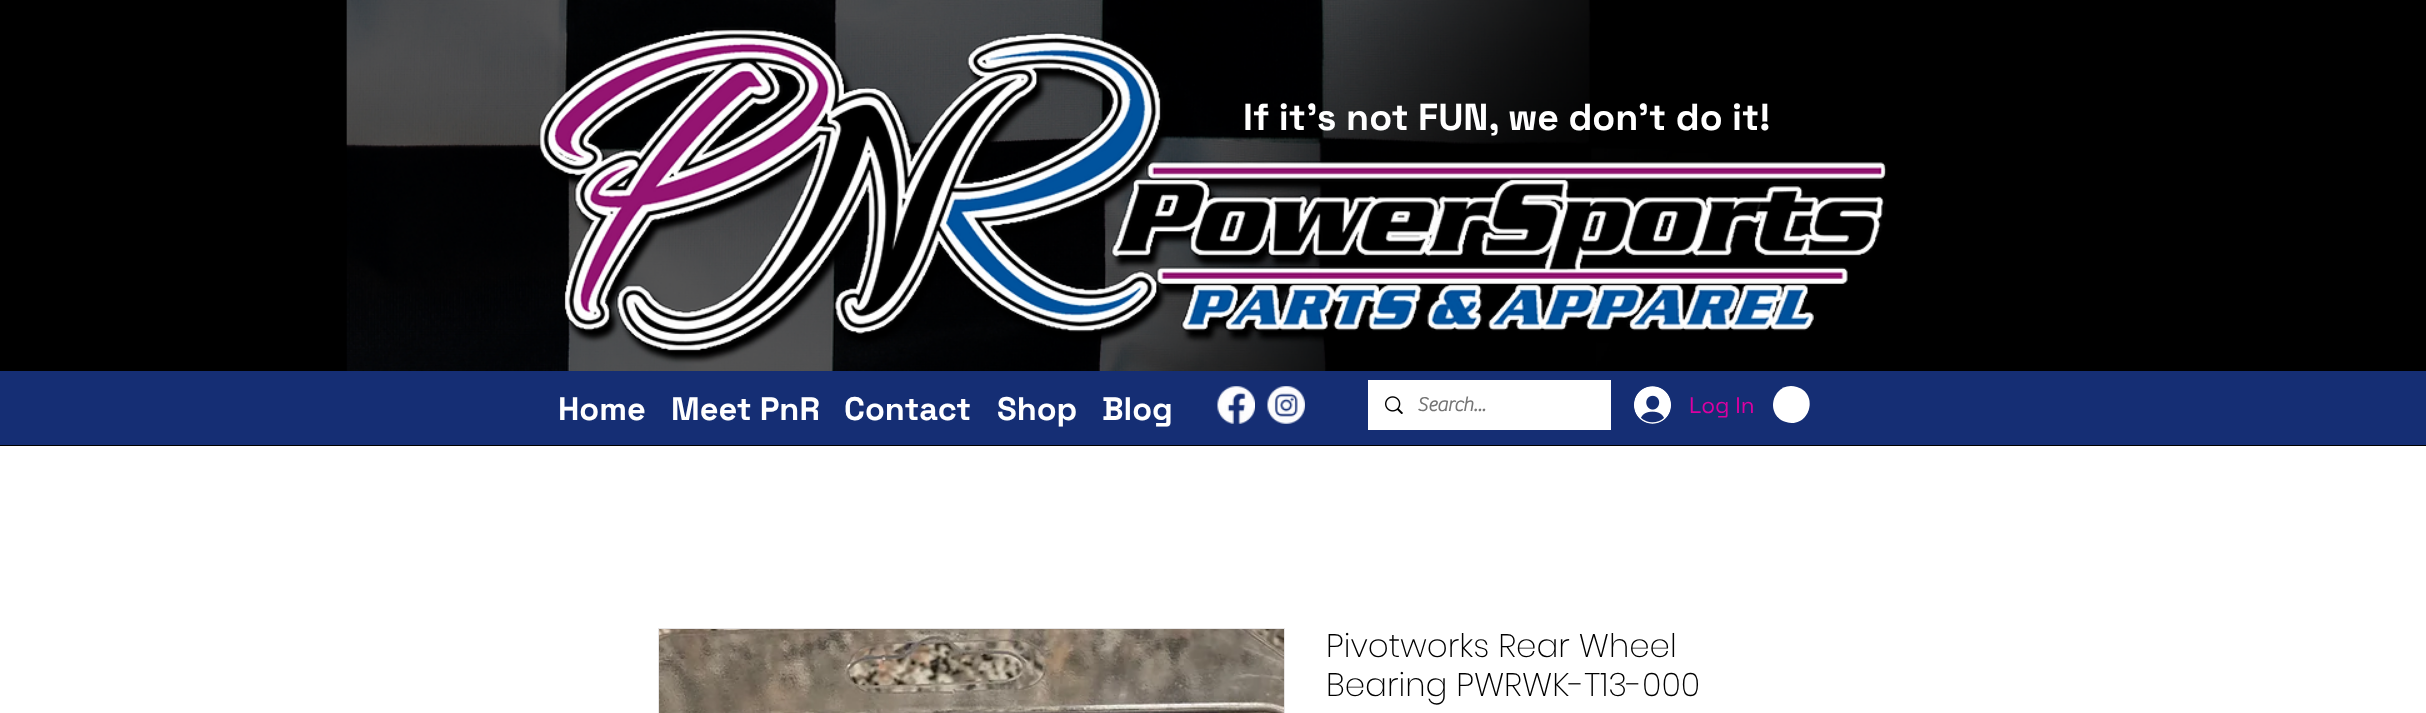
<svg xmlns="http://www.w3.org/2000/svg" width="2426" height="713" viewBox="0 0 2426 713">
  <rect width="100%" height="100%" fill="#ffffff"/>
  <rect x="0" y="0" width="2426" height="446" fill="#000000"/>
  <image x="346" y="0" width="1541" height="371" href="img1.png"/>
  <text x="1243" y="130" font-family="Space Grotesk" font-size="37.5" font-weight="bold" fill="#ffffff">If it's not FUN, we don't do it!</text>
  <rect x="0" y="371" width="2426" height="74" fill="#152e74"/>
  <text x="558" y="420" font-family="Space Grotesk" font-size="32.5" font-weight="bold" fill="#ffffff">Home</text>
  <text x="671" y="420" font-family="Space Grotesk" font-size="32.5" font-weight="bold" fill="#ffffff">Meet PnR</text>
  <text x="844" y="420" font-family="Space Grotesk" font-size="32.5" font-weight="bold" fill="#ffffff">Contact</text>
  <text x="997" y="420" font-family="Space Grotesk" font-size="32.5" font-weight="bold" fill="#ffffff">Shop</text>
  <text x="1102" y="420" font-family="Space Grotesk" font-size="32.5" font-weight="bold" fill="#ffffff">Blog</text>
  <image x="1217" y="386" width="38" height="38" href="img2.png"/>
  <image x="1267" y="386" width="38" height="38" href="img3.png"/>
  <rect x="1368" y="380" width="243" height="50" fill="#ffffff"/>
  <image x="1385" y="396" width="18" height="18" href="img4.png"/>
  <text x="1417" y="411" font-family="'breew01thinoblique'" font-size="20" font-weight="bold" fill="#757575">Search...</text>
  <image x="1634" y="386" width="37" height="38" href="img5.png"/>
  <text x="1689" y="413" font-family="Space Grotesk" font-size="22.5" fill="#db00a1">Log In</text>
  <path d="M1797 387C1820 394 1809 429 1786 422C1763 415 1773 380 1797 387Z" fill="#ffffff"/>
  <rect x="658.5" y="628.5" width="626" height="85" fill="none" stroke="#e8e6e6"/>
  <image x="659" y="629" width="625" height="84" href="img6.png"/>
  <text x="1326" y="657" font-family="Poppins" font-size="32.5" font-weight="200" fill="#000000">Pivotworks Rear Wheel</text>
  <text x="1326" y="696" font-family="Poppins" font-size="32.5" font-weight="200" fill="#000000">Bearing PWRWK-T13-000</text>
</svg>
